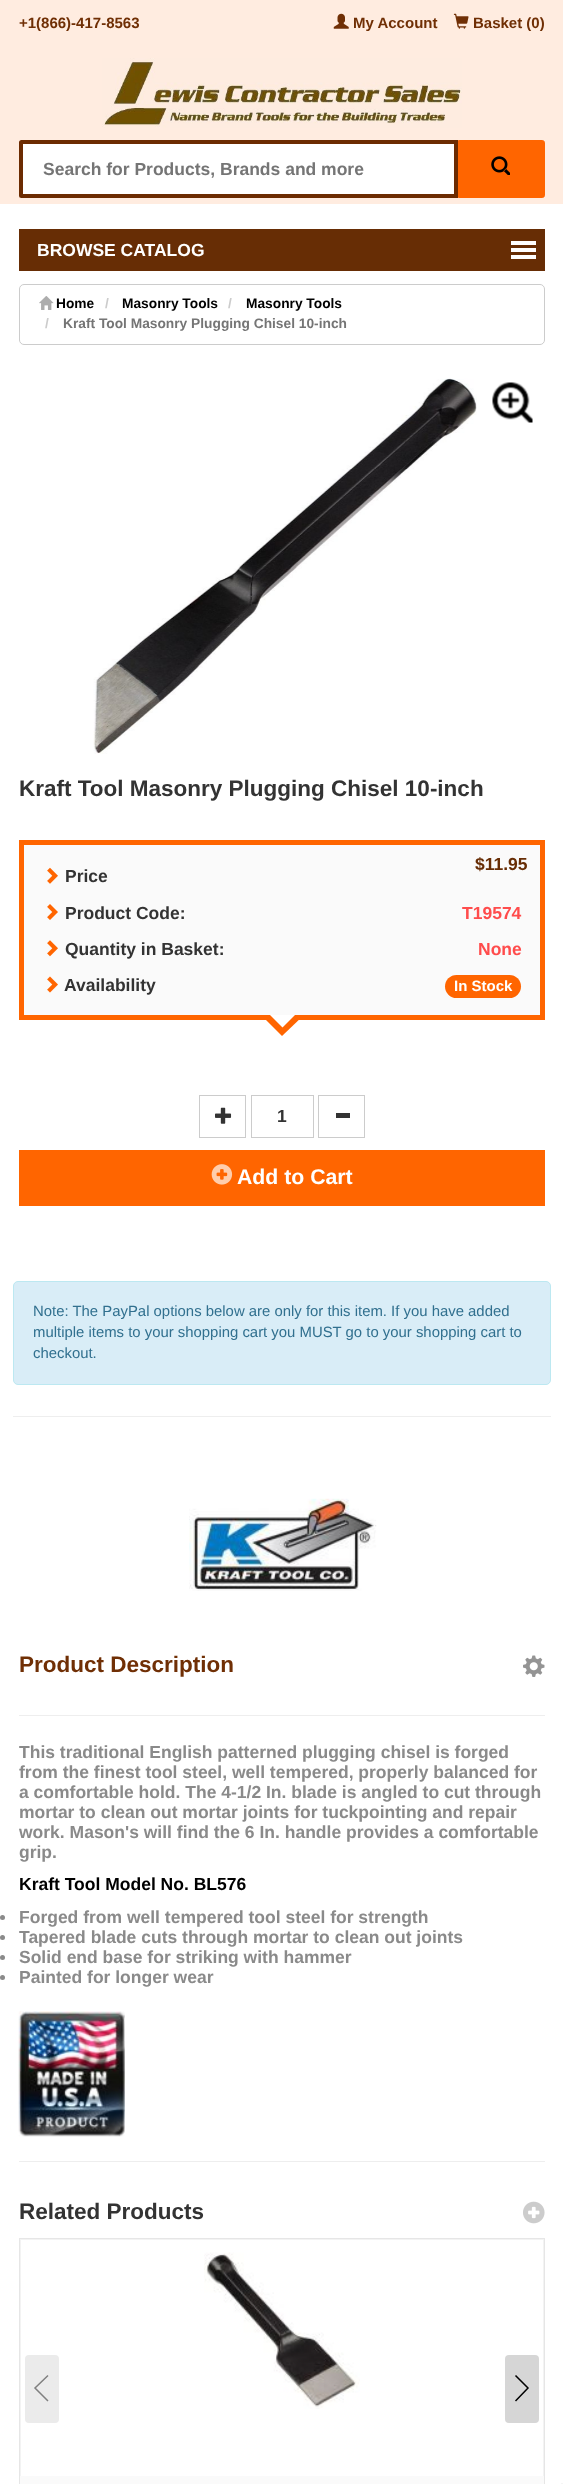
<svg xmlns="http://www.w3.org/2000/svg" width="563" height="2484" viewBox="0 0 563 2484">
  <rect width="100%" height="100%" fill="#ffffff"/>
  <rect x="0" y="0" width="563" height="204" fill="#ffece0"/>
  <text x="19" y="28" font-family="Liberation Sans" font-size="15" font-weight="bold" fill="#702f05">+1(866)-417-8563</text>
  <image x="333" y="13" width="16" height="16" href="img1.png"/>
  <text x="353" y="28" font-family="Liberation Sans" font-size="15" font-weight="bold" fill="#702f05">My Account</text>
  <image x="453" y="13" width="16" height="16" href="img2.png"/>
  <text x="473" y="28" font-family="Liberation Sans" font-size="15" font-weight="bold" fill="#702f05">Basket (0)</text>
  <image x="102" y="58" width="360" height="70" href="img3.png"/>
  <path d="M21.5 142H456V196H21.5C21 196 21 196 21 195.5V142.5C21 142 21 142 21.5 142Z" fill="#ffffff" stroke="#6c2b01" stroke-width="4"/>
  <text x="43" y="175" font-family="Liberation Sans" font-size="17.5" font-weight="bold" fill="#757575">Search for Products, Brands and more</text>
  <path d="M458.5 140.5H542.5C543.5 140.5 544.5 141.5 544.5 142.5V195.5C544.5 196.5 543.5 197.5 542.5 197.5H458.5Z" fill="#ff6500" stroke="#ff6500"/>
  <image x="491" y="156" width="19" height="19" href="img4.png"/>
  <rect x="19" y="229" width="526" height="42" fill="#672d05"/>
  <text x="37" y="256" font-family="Liberation Sans" font-size="17.5" font-weight="bold" fill="#ffffff">BROWSE CATALOG</text>
  <rect x="511" y="241" width="25" height="4" fill="#ffffff"/>
  <rect x="511" y="248" width="25" height="4" fill="#ffffff"/>
  <rect x="511" y="255" width="25" height="4" fill="#ffffff"/>
  <rect x="19.5" y="284.5" width="525" height="60" rx="4.5" fill="none" stroke="#cccccc"/>
  <image x="39" y="296" width="15" height="14" href="img5.png"/>
  <text x="56" y="308" font-family="Liberation Sans" font-size="13.75" font-weight="bold" fill="#000000">Home</text>
  <text x="105" y="308" font-family="Liberation Sans" font-size="13.75" font-weight="bold" fill="#cccccc">/</text>
  <text x="122" y="308" font-family="Liberation Sans" font-size="13.75" font-weight="bold" fill="#000000">Masonry Tools</text>
  <text x="228" y="308" font-family="Liberation Sans" font-size="13.75" font-weight="bold" fill="#cccccc">/</text>
  <text x="246" y="308" font-family="Liberation Sans" font-size="13.75" font-weight="bold" fill="#000000">Masonry Tools</text>
  <text x="45" y="328" font-family="Liberation Sans" font-size="13.75" font-weight="bold" fill="#cccccc">/</text>
  <text x="63" y="328" font-family="Liberation Sans" font-size="13.75" font-weight="bold" fill="#757575">Kraft Tool Masonry Plugging Chisel 10-inch</text>
  <image x="93" y="378" width="384" height="376" href="img6.png"/>
  <image x="492" y="382" width="41" height="41" href="img7.png"/>
  <text x="19" y="796" font-family="Liberation Sans" font-size="22.5" font-weight="bold" fill="#333333">Kraft Tool Masonry Plugging Chisel 10-inch</text>
  <rect x="21.5" y="842.5" width="521" height="175" fill="#fafafa" stroke="#ff6500" stroke-width="5"/>
  <text x="475" y="870" font-family="Liberation Sans" font-size="17.5" font-weight="bold" fill="#672d05">$11.95</text>
  <image x="47" y="867" width="11" height="17" href="img8.png"/>
  <text x="65" y="882" font-family="Liberation Sans" font-size="17.5" font-weight="bold" fill="#333333">Price</text>
  <image x="47" y="904" width="11" height="16" href="img9.png"/>
  <text x="65" y="919" font-family="Liberation Sans" font-size="17.5" font-weight="bold" fill="#333333">Product Code:</text>
  <text x="462" y="919" font-family="Liberation Sans" font-size="17.5" font-weight="bold" fill="#ff4c4c">T19574</text>
  <image x="47" y="940" width="11" height="17" href="img10.png"/>
  <text x="65" y="955" font-family="Liberation Sans" font-size="17.5" font-weight="bold" fill="#333333">Quantity in Basket:</text>
  <text x="478" y="955" font-family="Liberation Sans" font-size="17.5" font-weight="bold" fill="#ff4c4c">None</text>
  <image x="47" y="976" width="11" height="17" href="img11.png"/>
  <text x="64" y="991" font-family="Liberation Sans" font-size="17.5" font-weight="bold" fill="#333333">Availability</text>
  <rect x="445" y="975" width="76" height="23" rx="11.5" fill="#ff6500"/>
  <text x="454" y="991" font-family="Liberation Sans" font-size="15" font-weight="bold" fill="#ffffff">In Stock</text>
  <path d="M261 1015H304L282 1036Z" fill="#ff6500"/>
  <path d="M270 1015H295L282.5 1027.5Z" fill="#ffffff"/>
  <rect x="199.5" y="1095.5" width="46" height="42" fill="none" stroke="#cccccc"/>
  <image x="215" y="1107" width="17" height="17" href="img12.png"/>
  <rect x="251.5" y="1095.5" width="62" height="42" fill="none" stroke="#cccccc"/>
  <text x="277" y="1122" font-family="Liberation Sans" font-size="17.5" font-weight="bold" fill="#333333">1</text>
  <rect x="318.5" y="1095.5" width="46" height="42" fill="none" stroke="#cccccc"/>
  <rect x="336" y="1113" width="14" height="5" fill="#333333"/>
  <rect x="19" y="1150" width="526" height="56" fill="#ff6500"/>
  <image x="211" y="1164" width="22" height="21" href="img13.png"/>
  <text x="237" y="1184" font-family="Liberation Sans" font-size="21.25" font-weight="bold" fill="#ffffff">Add to Cart</text>
  <rect x="13.5" y="1281.5" width="537" height="103" rx="4.5" fill="#d9edf7" stroke="#bce8f1"/>
  <text x="33" y="1316" font-family="Liberation Sans" font-size="14.9" fill="#31708f">Note: The PayPal options below are only for this item. If you have added</text>
  <text x="33" y="1337" font-family="Liberation Sans" font-size="14.9" fill="#31708f">multiple items to your shopping cart you MUST go to your shopping cart to</text>
  <text x="33" y="1358" font-family="Liberation Sans" font-size="14.9" fill="#31708f">checkout.</text>
  <rect x="13" y="1416" width="538" height="1" fill="#eeeeee"/>
  <image x="189" y="1498" width="188" height="93" href="img14.png"/>
  <text x="19" y="1672" font-family="Liberation Sans" font-size="22.5" font-weight="bold" fill="#702f05">Product Description</text>
  <image x="523" y="1655" width="22" height="22" href="img15.png"/>
  <rect x="19" y="1715" width="526" height="1" fill="#eeeeee"/>
  <text x="19" y="1758" font-family="Liberation Sans" font-size="17.5" font-weight="bold" fill="#8a8a8a">This traditional English patterned plugging chisel is forged</text>
  <text x="19" y="1778" font-family="Liberation Sans" font-size="17.5" font-weight="bold" fill="#8a8a8a">from the finest tool steel, well tempered, properly balanced for</text>
  <text x="19" y="1798" font-family="Liberation Sans" font-size="17.5" font-weight="bold" fill="#8a8a8a">a comfortable hold. The 4-1/2 In. blade is angled to cut through</text>
  <text x="19" y="1818" font-family="Liberation Sans" font-size="17.5" font-weight="bold" fill="#8a8a8a">mortar to clean out mortar joints for tuckpointing and repair</text>
  <text x="19" y="1838" font-family="Liberation Sans" font-size="17.5" font-weight="bold" fill="#8a8a8a">work. Mason's will find the 6 In. handle provides a comfortable</text>
  <text x="19" y="1858" font-family="Liberation Sans" font-size="17.5" font-weight="bold" fill="#8a8a8a">grip.</text>
  <text x="19" y="1890" font-family="Liberation Sans" font-size="17.5" font-weight="bold" fill="#000000">Kraft Tool Model No. BL576</text>
  <circle cx="2.5" cy="1917.5" r="2.5" fill="#8a8a8a"/>
  <text x="19" y="1923" font-family="Liberation Sans" font-size="17.5" font-weight="bold" fill="#8a8a8a">Forged from well tempered tool steel for strength</text>
  <circle cx="2.5" cy="1937.5" r="2.5" fill="#8a8a8a"/>
  <text x="19" y="1943" font-family="Liberation Sans" font-size="17.5" font-weight="bold" fill="#8a8a8a">Tapered blade cuts through mortar to clean out joints</text>
  <circle cx="2.5" cy="1957.5" r="2.5" fill="#8a8a8a"/>
  <text x="19" y="1963" font-family="Liberation Sans" font-size="17.5" font-weight="bold" fill="#8a8a8a">Solid end base for striking with hammer</text>
  <circle cx="2.5" cy="1977.5" r="2.5" fill="#8a8a8a"/>
  <text x="19" y="1983" font-family="Liberation Sans" font-size="17.5" font-weight="bold" fill="#8a8a8a">Painted for longer wear</text>
  <image x="18" y="2011" width="107" height="126" href="img16.png"/>
  <rect x="19" y="2161" width="526" height="1" fill="#eeeeee"/>
  <text x="19" y="2219" font-family="Liberation Sans" font-size="22.5" font-weight="bold" fill="#333333">Related Products</text>
  <image x="523" y="2201" width="22" height="23" href="img17.png"/>
  <rect x="19" y="2238" width="526" height="1" fill="#e6e6e6"/>
  <rect x="544" y="2238" width="1" height="246" fill="#e6e6e6"/>
  <rect x="19" y="2238" width="1" height="246" fill="#e6e6e6"/>
  <rect x="20" y="2239" width="524" height="1" fill="#f3f3f3"/>
  <rect x="543" y="2239" width="1" height="237" fill="#f3f3f3"/>
  <rect x="20" y="2239" width="1" height="237" fill="#f3f3f3"/>
  <image x="204" y="2252" width="156" height="157" href="img18.png"/>
  <rect x="20" y="2476" width="524" height="8" fill="#fafafa"/>
  <rect x="25" y="2355" width="34" height="68" rx="4" fill="#ebebeb"/>
  <path d="M48 2375.5L35 2388L48 2401" fill="none" stroke="#808080" stroke-width="1.5"/>
  <rect x="505" y="2355" width="34" height="68" rx="4" fill="#d6d6d6"/>
  <path d="M515.5 2401L528 2388L515.5 2375.5" fill="none" stroke="#000000" stroke-width="1.5"/>
  <rect x="561" y="2483" width="2" height="1" fill="#f5f5f5"/>
</svg>
